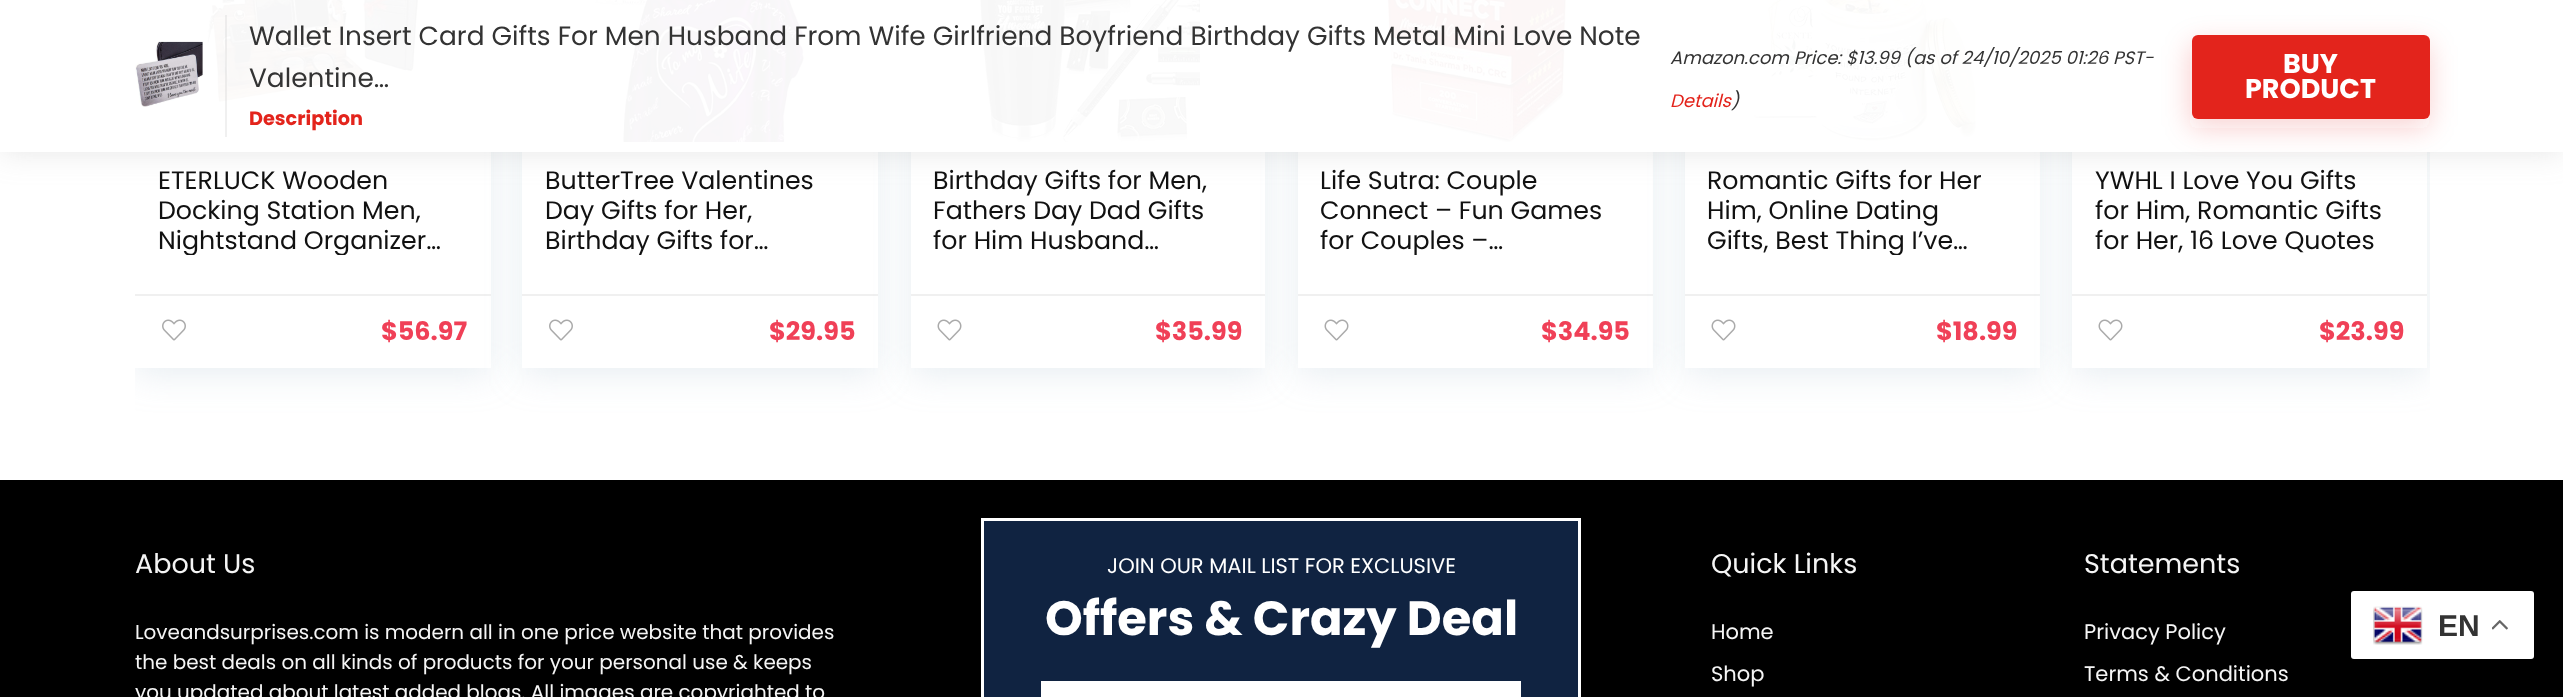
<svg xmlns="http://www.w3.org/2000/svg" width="2563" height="697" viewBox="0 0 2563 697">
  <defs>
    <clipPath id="clip1"><rect x="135" y="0" width="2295" height="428"/></clipPath>
    <filter id="blur1" x="-50%" y="-200%" width="200%" height="500%"><feGaussianBlur stdDeviation="17"/></filter>
    <clipPath id="clip2"><path d="M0 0H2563V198H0ZM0 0H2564V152H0Z" clip-rule="evenodd"/></clipPath>
    <filter id="blur2" x="-50%" y="-200%" width="200%" height="500%"><feGaussianBlur stdDeviation="15"/></filter>
    <filter id="blur3" x="-50%" y="-200%" width="200%" height="500%"><feGaussianBlur stdDeviation="14"/></filter>
    <clipPath id="clip3"><rect x="158" y="165" width="288" height="90"/></clipPath>
    <clipPath id="clip4"><rect x="545" y="165" width="288" height="90"/></clipPath>
    <clipPath id="clip5"><rect x="1320" y="165" width="288" height="90"/></clipPath>
    <clipPath id="clip6"><rect x="1707" y="165" width="288" height="90"/></clipPath>
  </defs>
  <rect width="100%" height="100%" fill="#ffffff"/>
  <g clip-path="url(#clip1)">
    <rect x="135" y="-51" width="356" height="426" fill="#bccfdb" fill-opacity="0.35" filter="url(#blur1)"/>
  </g>
  <rect x="135" y="0" width="356" height="368" fill="#ffffff"/>
  <image x="206" y="0" width="213" height="106" href="img2.png"/>
  <rect x="135" y="294" width="356" height="2" fill="#f0f0f0"/>
  <rect x="522" y="-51" width="356" height="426" fill="#bccfdb" fill-opacity="0.35" filter="url(#blur1)"/>
  <rect x="522" y="0" width="356" height="368" fill="#ffffff"/>
  <image x="589" y="0" width="215" height="142" href="img4.png"/>
  <rect x="522" y="294" width="356" height="2" fill="#f0f0f0"/>
  <rect x="911" y="-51" width="354" height="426" fill="#bccfdb" fill-opacity="0.35" filter="url(#blur1)"/>
  <rect x="911" y="0" width="354" height="368" fill="#ffffff"/>
  <image x="980" y="0" width="220" height="142" href="img5.png"/>
  <rect x="911" y="294" width="354" height="2" fill="#f0f0f0"/>
  <rect x="1298" y="-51" width="355" height="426" fill="#bccfdb" fill-opacity="0.35" filter="url(#blur1)"/>
  <rect x="1298" y="0" width="355" height="368" fill="#ffffff"/>
  <image x="1386" y="0" width="181" height="142" href="img7.png"/>
  <rect x="1298" y="294" width="355" height="2" fill="#f0f0f0"/>
  <rect x="1685" y="-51" width="355" height="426" fill="#bccfdb" fill-opacity="0.35" filter="url(#blur1)"/>
  <rect x="1685" y="0" width="355" height="368" fill="#ffffff"/>
  <image x="1750" y="0" width="226" height="142" href="img8.png"/>
  <rect x="1685" y="294" width="355" height="2" fill="#f0f0f0"/>
  <g clip-path="url(#clip1)">
    <rect x="2072" y="-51" width="355" height="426" fill="#bccfdb" fill-opacity="0.35" filter="url(#blur1)"/>
  </g>
  <rect x="2072" y="0" width="355" height="368" fill="#ffffff"/>
  <g clip-path="url(#clip2)">
    <rect x="0" y="0" width="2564" height="152" fill="#bbbbbb" fill-opacity="0.36" filter="url(#blur2)"/>
  </g>
  <rect x="0" y="0" width="2563" height="152" fill="#ffffff" fill-opacity="0.97"/>
  <image x="135" y="41" width="68" height="66" href="img1.png"/>
  <rect x="225" y="15" width="2" height="122" fill="#cecece" fill-opacity="0.3"/>
  <text x="249" y="45" font-family="Poppins" font-size="26.4" fill="#333333">Wallet Insert Card Gifts For Men Husband From Wife Girlfriend Boyfriend Birthday Gifts Metal Mini Love Note</text>
  <text x="249" y="87" font-family="Poppins" font-size="26.4" fill="#333333">Valentine…</text>
  <text x="249" y="125" font-family="Poppins" font-size="19.25" font-weight="bold" fill="#e3241c">Description</text>
  <text x="1670" y="64" font-family="Poppins" font-size="18" font-style="italic" fill="#333333">Amazon.com Price: $13.99 (as of 24/10/2025 01:26 PST-</text>
  <text x="1670" y="107" font-family="Poppins" font-size="18" font-style="italic" fill="#e3241c">Details</text>
  <text x="1731" y="107" font-family="Poppins" font-size="18" font-style="italic" fill="#333333">)</text>
  <rect x="2190" y="44" width="239" height="84" rx="6" fill="#e3241c" fill-opacity="0.2" filter="url(#blur3)"/>
  <rect x="2192" y="35" width="238" height="84" rx="6" fill="#e3241c"/>
  <text x="2283" y="73" font-family="Poppins" font-size="27" font-weight="bold" fill="#ffffff">BUY</text>
  <text x="2245" y="98" font-family="Poppins" font-size="27" font-weight="bold" fill="#ffffff">PRODUCT</text>
  <text x="158" y="189" font-family="Poppins" font-size="25.25" fill="#111111">ETERLUCK Wooden</text>
  <text x="158" y="219" font-family="Poppins" font-size="25.25" fill="#111111">Docking Station Men,</text>
  <g clip-path="url(#clip3)">
    <text x="158" y="249" font-family="Poppins" font-size="25.25" fill="#111111">Nightstand Organizer…</text>
  </g>
  <image x="162" y="319" width="24" height="22" href="img3.png"/>
  <text x="381" y="340" font-family="Poppins" font-size="25.5" font-weight="bold" fill="#f04057">$56.97</text>
  <text x="545" y="189" font-family="Poppins" font-size="25.25" fill="#111111">ButterTree Valentines</text>
  <text x="545" y="219" font-family="Poppins" font-size="25.25" fill="#111111">Day Gifts for Her,</text>
  <g clip-path="url(#clip4)">
    <text x="545" y="249" font-family="Poppins" font-size="25.25" fill="#111111">Birthday Gifts for…</text>
  </g>
  <image x="549" y="319" width="24" height="22" href="img3.png"/>
  <text x="769" y="340" font-family="Poppins" font-size="25.5" font-weight="bold" fill="#f04057">$29.95</text>
  <text x="933" y="189" font-family="Poppins" font-size="25.25" fill="#111111">Birthday Gifts for Men,</text>
  <text x="933" y="219" font-family="Poppins" font-size="25.25" fill="#111111">Fathers Day Dad Gifts</text>
  <text x="933" y="249" font-family="Poppins" font-size="25.25" fill="#111111">for Him Husband…</text>
  <image x="937" y="319" width="25" height="22" href="img6.png"/>
  <text x="1155" y="340" font-family="Poppins" font-size="25.5" font-weight="bold" fill="#f04057">$35.99</text>
  <text x="1320" y="189" font-family="Poppins" font-size="25.25" fill="#111111">Life Sutra: Couple</text>
  <text x="1320" y="219" font-family="Poppins" font-size="25.25" fill="#111111">Connect – Fun Games</text>
  <g clip-path="url(#clip5)">
    <text x="1320" y="249" font-family="Poppins" font-size="25.25" fill="#111111">for Couples –…</text>
  </g>
  <image x="1324" y="319" width="25" height="22" href="img6.png"/>
  <text x="1541" y="340" font-family="Poppins" font-size="25.5" font-weight="bold" fill="#f04057">$34.95</text>
  <text x="1707" y="189" font-family="Poppins" font-size="25.25" fill="#111111">Romantic Gifts for Her</text>
  <text x="1707" y="219" font-family="Poppins" font-size="25.25" fill="#111111">Him, Online Dating</text>
  <g clip-path="url(#clip6)">
    <text x="1707" y="249" font-family="Poppins" font-size="25.25" fill="#111111">Gifts, Best Thing I’ve…</text>
  </g>
  <image x="1711" y="319" width="25" height="22" href="img6.png"/>
  <text x="1936" y="340" font-family="Poppins" font-size="25.5" font-weight="bold" fill="#f04057">$18.99</text>
  <text x="2095" y="189" font-family="Poppins" font-size="25.25" fill="#111111">YWHL I Love You Gifts</text>
  <text x="2095" y="219" font-family="Poppins" font-size="25.25" fill="#111111">for Him, Romantic Gifts</text>
  <text x="2095" y="249" font-family="Poppins" font-size="25.25" fill="#111111">for Her, 16 Love Quotes</text>
  <rect x="2072" y="294" width="355" height="2" fill="#f0f0f0"/>
  <image x="2098" y="319" width="25" height="22" href="img6.png"/>
  <text x="2319" y="340" font-family="Poppins" font-size="25.5" font-weight="bold" fill="#f04057">$23.99</text>
  <rect x="0" y="480" width="2563" height="217" fill="#000000"/>
  <text x="135" y="573" font-family="Poppins" font-size="27" fill="#f5f5f5">About Us</text>
  <text x="135" y="639" font-family="Poppins" font-size="19.95" fill="#f5f5f5">Loveandsurprises.com is modern all in one price website that provides</text>
  <text x="135" y="669" font-family="Poppins" font-size="19.95" fill="#f5f5f5">the best deals on all kinds of products for your personal use &amp; keeps</text>
  <text x="135" y="699" font-family="Poppins" font-size="19.95" fill="#f5f5f5">you updated about latest added blogs. All images are copyrighted to</text>
  <rect x="982.5" y="519.5" width="597" height="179" fill="#102341" stroke="#ffffff" stroke-width="3"/>
  <text x="1107" y="573" font-family="Poppins" font-size="21" fill="#ffffff">JOIN OUR MAIL LIST FOR EXCLUSIVE</text>
  <text x="1045" y="635" font-family="Poppins" font-size="48" font-weight="bold" fill="#ffffff">Offers &amp; Crazy Deal</text>
  <rect x="1041" y="681" width="480" height="16" fill="#ffffff"/>
  <text x="1711" y="573" font-family="Poppins" font-size="27" fill="#f5f5f5">Quick Links</text>
  <text x="1711" y="639" font-family="Poppins" font-size="21" fill="#f5f5f5">Home</text>
  <text x="1711" y="681" font-family="Poppins" font-size="21" fill="#f5f5f5">Shop</text>
  <text x="2084" y="573" font-family="Poppins" font-size="27" fill="#f5f5f5">Statements</text>
  <text x="2084" y="639" font-family="Poppins" font-size="21" fill="#f5f5f5">Privacy Policy</text>
  <text x="2084" y="681" font-family="Poppins" font-size="21" fill="#f5f5f5">Terms &amp; Conditions</text>
  <rect x="2351" y="591" width="183" height="68" rx="3" fill="#ffffff"/>
  <image x="2373" y="606" width="50" height="39" href="img9.png"/>
  <text x="2438" y="636" font-family="Liberation Sans" font-size="30" font-weight="bold" fill="#333333">EN</text>
  <image x="2492" y="620" width="16" height="10" href="img10.png"/>
</svg>
